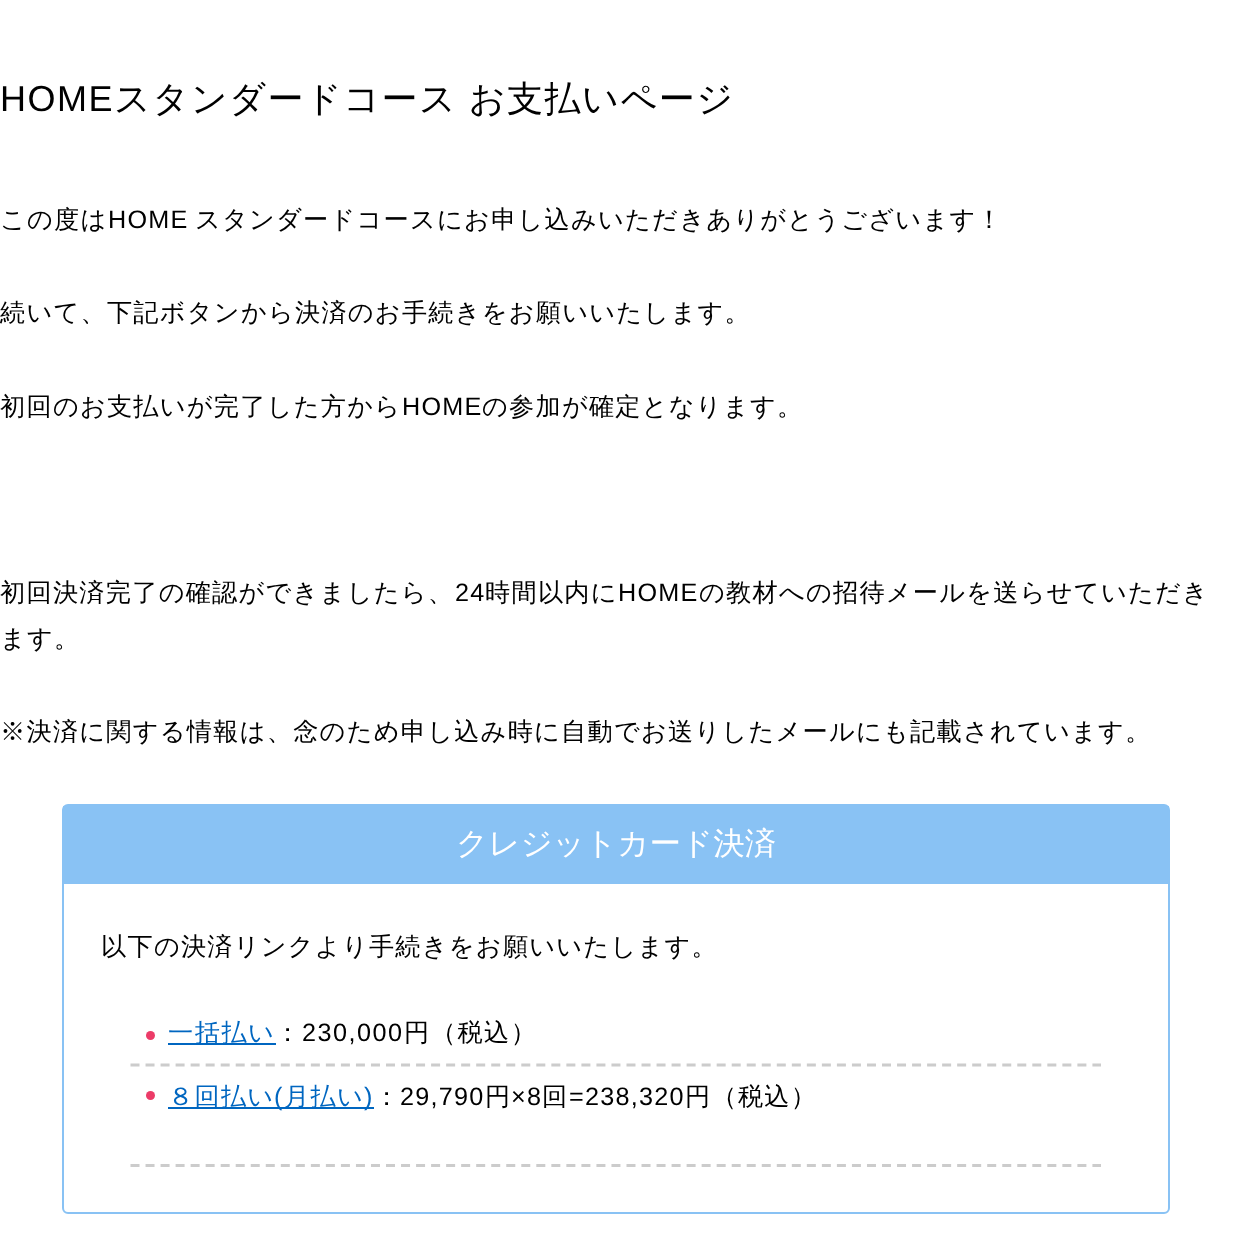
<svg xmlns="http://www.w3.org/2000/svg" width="1246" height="1254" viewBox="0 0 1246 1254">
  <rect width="100%" height="100%" fill="#ffffff"/>
  <text x="0" y="111" font-family="Liberation Sans" font-size="36" letter-spacing="1.5" fill="#000000">HOME</text>
  <text x="114" y="111" word-spacing="-1" font-family="WenQuanYi Zen Hei" font-size="36" font-weight="500" letter-spacing="1.5" fill="#000000">スタンダードコース お支払いページ</text>
  <text x="0" y="228" font-family="WenQuanYi Zen Hei" font-size="25.2" font-weight="500" letter-spacing="1.25" fill="#000000">この度は</text>
  <text x="108" y="228" font-family="Liberation Sans" font-size="25.2" letter-spacing="1.25" fill="#000000">HOME</text>
  <text x="195" y="228" font-family="WenQuanYi Zen Hei" font-size="25.2" font-weight="500" letter-spacing="1.25" fill="#000000">スタンダードコースにお申し込みいただきありがとうございます！</text>
  <text x="0" y="321" font-family="WenQuanYi Zen Hei" font-size="25.2" font-weight="500" letter-spacing="1.25" fill="#000000">続いて、下記ボタンから決済のお手続きをお願いいたします。</text>
  <text x="0" y="415" font-family="WenQuanYi Zen Hei" font-size="25.2" font-weight="500" letter-spacing="1.25" fill="#000000">初回のお支払いが完了した方から</text>
  <text x="402" y="415" font-family="Liberation Sans" font-size="25.2" letter-spacing="1.25" fill="#000000">HOME</text>
  <text x="482" y="415" font-family="WenQuanYi Zen Hei" font-size="25.2" font-weight="500" letter-spacing="1.25" fill="#000000">の参加が確定となります。</text>
  <text x="0" y="601" font-family="WenQuanYi Zen Hei" font-size="25.2" font-weight="500" letter-spacing="1.25" fill="#000000">初回決済完了の確認ができましたら、</text>
  <text x="455" y="601" font-family="Liberation Sans" font-size="25.2" letter-spacing="1.25" fill="#000000">24</text>
  <text x="485" y="601" font-family="WenQuanYi Zen Hei" font-size="25.2" font-weight="500" letter-spacing="1.25" fill="#000000">時間以内に</text>
  <text x="618" y="601" font-family="Liberation Sans" font-size="25.2" letter-spacing="1.25" fill="#000000">HOME</text>
  <text x="699" y="601" font-family="WenQuanYi Zen Hei" font-size="25.2" font-weight="500" letter-spacing="1.25" fill="#000000">の教材への招待メールを送らせていただき</text>
  <text x="0" y="647" font-family="WenQuanYi Zen Hei" font-size="25.2" font-weight="500" letter-spacing="1.25" fill="#000000">ます。</text>
  <text x="0" y="740" font-family="WenQuanYi Zen Hei" font-size="25.2" font-weight="500" letter-spacing="1.25" fill="#000000">※決済に関する情報は、念のため申し込み時に自動でお送りしたメールにも記載されています。</text>
  <rect x="63" y="805" width="1106" height="408" rx="5" fill="none" stroke="#89c2f4" stroke-width="2"/>
  <rect x="63" y="806" width="1106" height="78" fill="#89c2f4"/>
  <text x="456" y="854" font-family="WenQuanYi Zen Hei" font-size="31.5" font-weight="500" fill="#ffffff">クレジットカード決済</text>
  <text x="101" y="955" font-family="WenQuanYi Zen Hei" font-size="25.2" font-weight="500" letter-spacing="1.25" fill="#000000">以下の決済リンクより手続きをお願いいたします。</text>
  <path d="M130.5 1065H1101" fill="none" stroke="#cccccc" stroke-width="3" stroke-dasharray="9 6.03"/>
  <circle cx="150.5" cy="1035.5" r="4.5" fill="#ec3c68"/>
  <rect x="168" y="1043" width="108" height="2" fill="#0066c0"/>
  <text x="168" y="1041" font-family="WenQuanYi Zen Hei" font-size="25.2" font-weight="500" letter-spacing="1.5" fill="#0066c0">一括払い</text>
  <text x="275" y="1041" font-family="WenQuanYi Zen Hei" font-size="25.2" font-weight="500" letter-spacing="1.5" fill="#000000">：</text>
  <text x="302" y="1041" font-family="Liberation Sans" font-size="25.2" letter-spacing="1.5" fill="#000000">230,000</text>
  <text x="404" y="1041" font-family="WenQuanYi Zen Hei" font-size="25.2" font-weight="500" letter-spacing="1.5" fill="#000000">円（税込）</text>
  <path d="M130.5 1165.5H1101" fill="none" stroke="#cccccc" stroke-width="3" stroke-dasharray="9 6.03"/>
  <circle cx="150.5" cy="1095.5" r="4.5" fill="#ec3c68"/>
  <rect x="168" y="1107" width="206" height="2" fill="#0066c0"/>
  <text x="168" y="1105" font-family="WenQuanYi Zen Hei" font-size="25.2" font-weight="500" letter-spacing="1.25" fill="#0066c0">８回払い</text>
  <text x="274" y="1105" font-family="Liberation Sans" font-size="25.2" letter-spacing="1.25" fill="#0066c0">(</text>
  <text x="284" y="1105" font-family="WenQuanYi Zen Hei" font-size="25.2" font-weight="500" letter-spacing="1.25" fill="#0066c0">月払い</text>
  <text x="364" y="1105" font-family="Liberation Sans" font-size="25.2" letter-spacing="1.25" fill="#0066c0">)</text>
  <text x="374" y="1105" font-family="WenQuanYi Zen Hei" font-size="25.2" font-weight="500" letter-spacing="1.25" fill="#000000">：</text>
  <text x="400" y="1105" font-family="Liberation Sans" font-size="25.2" letter-spacing="1.25" fill="#000000">29,790</text>
  <text x="485" y="1105" font-family="WenQuanYi Zen Hei" font-size="25.2" font-weight="500" letter-spacing="1.25" fill="#000000">円</text>
  <text x="511" y="1105" font-family="Liberation Sans" font-size="25.2" letter-spacing="1.25" fill="#000000">×8</text>
  <text x="542" y="1105" font-family="WenQuanYi Zen Hei" font-size="25.2" font-weight="500" letter-spacing="1.25" fill="#000000">回</text>
  <text x="569" y="1105" font-family="Liberation Sans" font-size="25.2" letter-spacing="1.25" fill="#000000">=238,320</text>
  <text x="685" y="1105" font-family="WenQuanYi Zen Hei" font-size="25.2" font-weight="500" letter-spacing="1.25" fill="#000000">円（税込）</text>
</svg>
